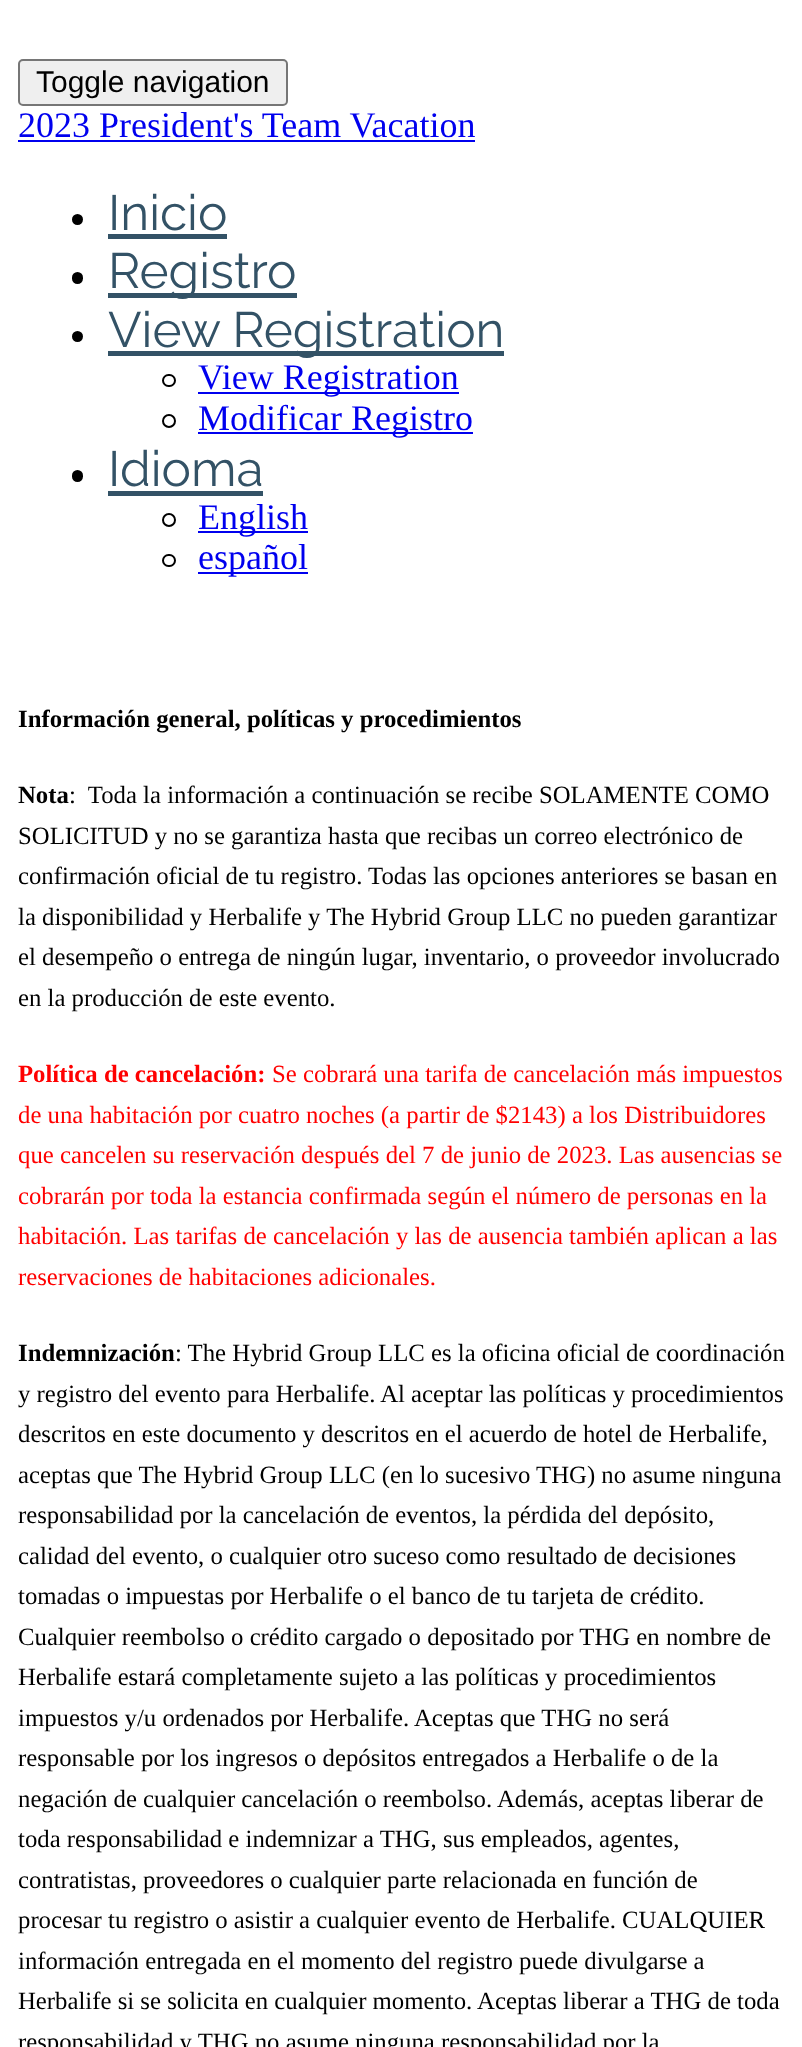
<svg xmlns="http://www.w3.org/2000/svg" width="802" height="2047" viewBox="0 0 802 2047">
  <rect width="100%" height="100%" fill="#ffffff"/>
  <rect x="19" y="60" width="268" height="45" rx="4" fill="#efefef" stroke="#767676" stroke-width="2"/>
  <text x="36" y="92" font-family="Liberation Sans" font-size="30" fill="#000000">Toggle navigation</text>
  <text x="18" y="137" font-family="Liberation Serif" font-size="36" fill="#0000ee">2023 President's Team Vacation</text>
  <rect x="18" y="140" width="457" height="2" fill="#0000ee"/>
  <circle cx="77.5" cy="219.5" r="5.5" fill="#000000"/>
  <text x="108" y="230" font-family="Raleway" font-size="49.5" fill="#335266">Inicio</text>
  <rect x="108" y="234" width="119" height="5" fill="#335266"/>
  <rect x="72" y="272" width="11" height="12" rx="5.5" fill="#000000"/>
  <rect x="108" y="293" width="189" height="5" fill="#335266"/>
  <text x="108" y="288" font-family="Raleway" font-size="49.5" fill="#335266">Registro</text>
  <circle cx="77.5" cy="336.5" r="5.5" fill="#000000"/>
  <rect x="108" y="351" width="396" height="5" fill="#335266"/>
  <text x="108" y="347" font-family="Raleway" font-size="49.5" fill="#335266">View Registration</text>
  <rect x="163" y="375" width="12" height="11" rx="5.5" fill="none" stroke="#000000" stroke-width="2"/>
  <rect x="198" y="392" width="261" height="2" fill="#0000ee"/>
  <text x="198" y="389" font-family="Liberation Serif" font-size="36" fill="#0000ee">View Registration</text>
  <circle cx="169" cy="421" r="6" fill="none" stroke="#000000" stroke-width="2"/>
  <rect x="198" y="432" width="275" height="2" fill="#0000ee"/>
  <text x="198" y="430" font-family="Liberation Serif" font-size="36" fill="#0000ee">Modificar Registro</text>
  <rect x="72" y="470" width="11" height="12" rx="5.5" fill="#000000"/>
  <text x="108" y="486" font-family="Raleway" font-size="49.5" fill="#335266">Idioma</text>
  <rect x="108" y="491" width="155" height="5" fill="#335266"/>
  <circle cx="169" cy="520" r="6" fill="none" stroke="#000000" stroke-width="2"/>
  <rect x="198" y="531" width="110" height="2" fill="#0000ee"/>
  <text x="198" y="529" font-family="Liberation Serif" font-size="36" fill="#0000ee">English</text>
  <rect x="163" y="555" width="12" height="11" rx="5.5" fill="none" stroke="#000000" stroke-width="2"/>
  <rect x="198" y="572" width="110" height="2" fill="#0000ee"/>
  <text x="198" y="569" font-family="Liberation Serif" font-size="36" fill="#0000ee">español</text>
  <text x="18" y="727" font-family="Liberation Serif" font-size="24.75" font-weight="bold" fill="#000000">Información general, políticas y procedimientos</text>
  <text x="18" y="803" font-family="Liberation Serif" font-size="24.75" font-weight="bold" fill="#000000">Nota</text>
  <text x="69" y="803" font-family="Liberation Serif" font-size="24.75" fill="#000000" xml:space="preserve">:  Toda la información a continuación se recibe SOLAMENTE COMO</text>
  <text x="18" y="844" font-family="Liberation Serif" font-size="24.75" fill="#000000">SOLICITUD y no se garantiza hasta que recibas un correo electrónico de</text>
  <text x="18" y="884" font-family="Liberation Serif" font-size="24.75" fill="#000000">confirmación oficial de tu registro. Todas las opciones anteriores se basan en</text>
  <text x="18" y="925" font-family="Liberation Serif" font-size="24.75" fill="#000000">la disponibilidad y Herbalife y The Hybrid Group LLC no pueden garantizar</text>
  <text x="18" y="965" font-family="Liberation Serif" font-size="24.75" fill="#000000">el desempeño o entrega de ningún lugar, inventario, o proveedor involucrado</text>
  <text x="18" y="1006" font-family="Liberation Serif" font-size="24.75" fill="#000000">en la producción de este evento.</text>
  <text x="18" y="1082" font-family="Liberation Serif" font-size="24.75" font-weight="bold" fill="#ff0000">Política de cancelación:</text>
  <text x="272" y="1082" font-family="Liberation Serif" font-size="24.75" fill="#ff0000">Se cobrará una tarifa de cancelación más impuestos</text>
  <text x="18" y="1123" font-family="Liberation Serif" font-size="24.75" fill="#ff0000">de una habitación por cuatro noches (a partir de $2143) a los Distribuidores</text>
  <text x="18" y="1163" font-family="Liberation Serif" font-size="24.75" fill="#ff0000">que cancelen su reservación después del 7 de junio de 2023. Las ausencias se</text>
  <text x="18" y="1204" font-family="Liberation Serif" font-size="24.75" fill="#ff0000">cobrarán por toda la estancia confirmada según el número de personas en la</text>
  <text x="18" y="1244" font-family="Liberation Serif" font-size="24.75" fill="#ff0000">habitación. Las tarifas de cancelación y las de ausencia también aplican a las</text>
  <text x="18" y="1285" font-family="Liberation Serif" font-size="24.75" fill="#ff0000">reservaciones de habitaciones adicionales.</text>
  <text x="18" y="1361" font-family="Liberation Serif" font-size="24.75" font-weight="bold" fill="#000000">Indemnización</text>
  <text x="175" y="1361" font-family="Liberation Serif" font-size="24.75" fill="#000000">: The Hybrid Group LLC es la oficina oficial de coordinación</text>
  <text x="18" y="1402" font-family="Liberation Serif" font-size="24.75" fill="#000000">y registro del evento para Herbalife. Al aceptar las políticas y procedimientos</text>
  <text x="18" y="1442" font-family="Liberation Serif" font-size="24.75" fill="#000000">descritos en este documento y descritos en el acuerdo de hotel de Herbalife,</text>
  <text x="18" y="1483" font-family="Liberation Serif" font-size="24.75" fill="#000000">aceptas que The Hybrid Group LLC (en lo sucesivo THG) no asume ninguna</text>
  <text x="18" y="1523" font-family="Liberation Serif" font-size="24.75" fill="#000000">responsabilidad por la cancelación de eventos, la pérdida del depósito,</text>
  <text x="18" y="1564" font-family="Liberation Serif" font-size="24.75" fill="#000000">calidad del evento, o cualquier otro suceso como resultado de decisiones</text>
  <text x="18" y="1604" font-family="Liberation Serif" font-size="24.75" fill="#000000">tomadas o impuestas por Herbalife o el banco de tu tarjeta de crédito.</text>
  <text x="18" y="1645" font-family="Liberation Serif" font-size="24.75" fill="#000000">Cualquier reembolso o crédito cargado o depositado por THG en nombre de</text>
  <text x="18" y="1685" font-family="Liberation Serif" font-size="24.75" fill="#000000">Herbalife estará completamente sujeto a las políticas y procedimientos</text>
  <text x="18" y="1726" font-family="Liberation Serif" font-size="24.75" fill="#000000">impuestos y/u ordenados por Herbalife. Aceptas que THG no será</text>
  <text x="18" y="1766" font-family="Liberation Serif" font-size="24.75" fill="#000000">responsable por los ingresos o depósitos entregados a Herbalife o de la</text>
  <text x="18" y="1807" font-family="Liberation Serif" font-size="24.75" fill="#000000">negación de cualquier cancelación o reembolso. Además, aceptas liberar de</text>
  <text x="18" y="1847" font-family="Liberation Serif" font-size="24.75" fill="#000000">toda responsabilidad e indemnizar a THG, sus empleados, agentes,</text>
  <text x="18" y="1888" font-family="Liberation Serif" font-size="24.75" fill="#000000">contratistas, proveedores o cualquier parte relacionada en función de</text>
  <text x="18" y="1928" font-family="Liberation Serif" font-size="24.75" fill="#000000">procesar tu registro o asistir a cualquier evento de Herbalife. CUALQUIER</text>
  <text x="18" y="1969" font-family="Liberation Serif" font-size="24.75" fill="#000000">información entregada en el momento del registro puede divulgarse a</text>
  <text x="18" y="2009" font-family="Liberation Serif" font-size="24.75" fill="#000000">Herbalife si se solicita en cualquier momento. Aceptas liberar a THG de toda</text>
  <text x="18" y="2050" font-family="Liberation Serif" font-size="24.75" fill="#000000">responsabilidad y THG no asume ninguna responsabilidad por la</text>
</svg>
